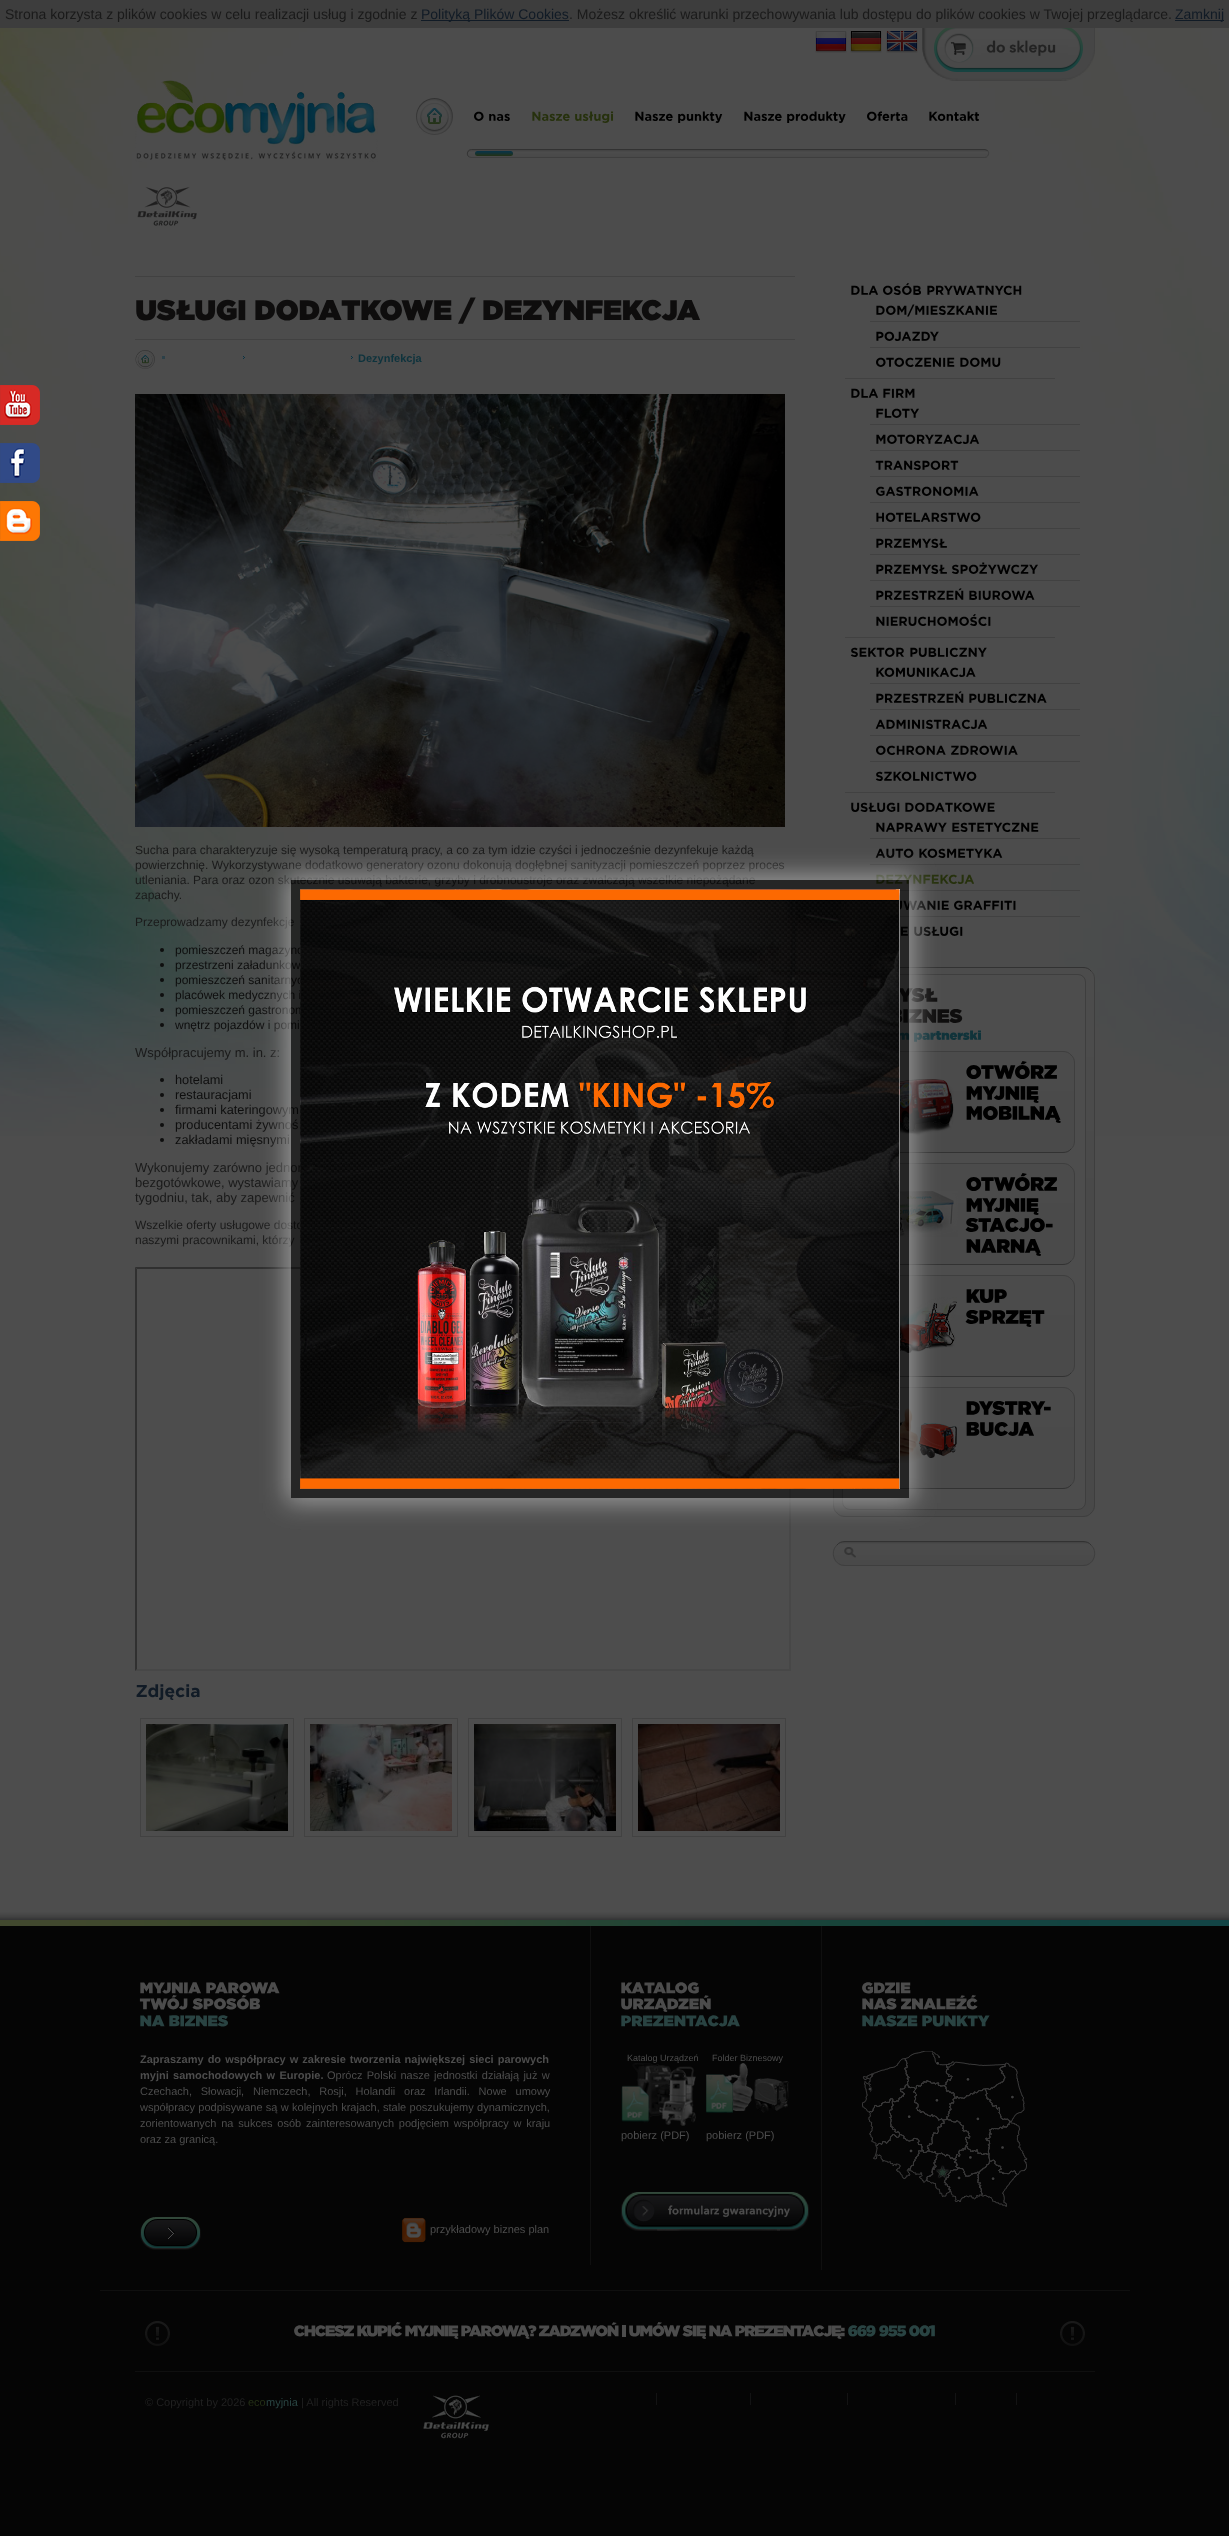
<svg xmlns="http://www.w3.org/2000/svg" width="1229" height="2536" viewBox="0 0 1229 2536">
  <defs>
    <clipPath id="clip1"><path d="M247 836H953V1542H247ZM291 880H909V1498H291Z" clip-rule="evenodd"/></clipPath>
    <filter id="blur1" x="-50%" y="-200%" width="200%" height="500%"><feGaussianBlur stdDeviation="12.5"/></filter>
  </defs>
  <rect width="100%" height="100%" fill="#050505"/>
  <rect x="0" y="0" width="1229" height="28" fill="#3d3d3d"/>
  <text x="5" y="19" font-family="Liberation Sans" font-size="14" fill="#1a1a1a">Strona korzysta z plików cookies w celu realizacji usług i zgodnie z</text>
  <rect x="421" y="20" width="148" height="1" fill="#111b26"/>
  <text x="421" y="19" font-family="Liberation Sans" font-size="14" fill="#111b26">Polityką Plików Cookies</text>
  <text x="569" y="19" font-family="Liberation Sans" font-size="14" fill="#1a1a1a">. Możesz określić warunki przechowywania lub dostępu do plików cookies w Twojej przeglądarce.</text>
  <rect x="1175" y="20" width="49" height="1" fill="#111b26"/>
  <text x="1175" y="19" font-family="Liberation Sans" font-size="14" fill="#111b26">Zamknij</text>
  <rect x="0" y="1136" width="1229" height="784" fill="#4d4d4d"/>
  <image x="0" y="28" width="1229" height="1108" href="img1.png"/>
  <image x="815" y="31" width="32" height="22" href="img2.png"/>
  <image x="850" y="31" width="32" height="22" href="img3.png"/>
  <image x="886" y="31" width="32" height="22" href="img4.png"/>
  <image x="922" y="28" width="173" height="53" href="img5.png"/>
  <image x="135" y="80" width="243" height="82" href="img6.png"/>
  <image x="416" y="98" width="37" height="37" href="img7.png"/>
  <image x="474" y="111" width="10" height="10" href="img8.png"/>
  <image x="489" y="113" width="21" height="8" href="img9.png"/>
  <image x="532" y="111" width="38" height="10" href="img10.png"/>
  <image x="575" y="111" width="39" height="12" href="img11.png"/>
  <image x="635" y="111" width="38" height="10" href="img12.png"/>
  <image x="678" y="111" width="45" height="12" href="img13.png"/>
  <image x="744" y="111" width="38" height="10" href="img12.png"/>
  <image x="787" y="111" width="59" height="12" href="img14.png"/>
  <image x="867" y="111" width="41" height="10" href="img15.png"/>
  <image x="929" y="111" width="50" height="10" href="img16.png"/>
  <image x="467" y="149" width="522" height="9" href="img17.png"/>
  <path d="M987.5 150.5C990 153 988 157.5 984.5 157.5H471L468.5 156.5" fill="none" stroke="#3e3e3e"/>
  <path d="M468.5 156.5C466 154 468 149.5 471.5 149.5H985L987.5 150.5" fill="none" stroke="#323232"/>
  <image x="475" y="151" width="38" height="5" href="img18.png"/>
  <image x="128" y="184" width="69" height="42" href="img19.png"/>
  <image x="0" y="385" width="40" height="40" href="img20.png"/>
  <image x="0" y="443" width="40" height="40" href="img21.png"/>
  <image x="0" y="501" width="40" height="40" href="img22.png"/>
  <rect x="135" y="276" width="660" height="1" fill="#414141"/>
  <image x="136" y="299" width="110" height="22" href="img23.png"/>
  <image x="255" y="299" width="197" height="22" href="img24.png"/>
  <image x="458" y="297" width="18" height="27" href="img25.png"/>
  <image x="483" y="299" width="217" height="22" href="img26.png"/>
  <rect x="135" y="339" width="660" height="1" fill="#414141"/>
  <image x="135" y="350" width="20" height="19" href="img27.png"/>
  <rect x="162" y="356" width="3" height="3" fill="#2c4048"/>
  <image x="243" y="356" width="2" height="3" href="img28.png"/>
  <image x="351" y="356" width="2" height="3" href="img28.png"/>
  <text x="358" y="362" font-family="Liberation Sans" font-size="11" font-weight="bold" fill="#0e333d">Dezynfekcja</text>
  <image x="135" y="394" width="650" height="433" href="img29.png"/>
  <text x="135" y="854" font-family="Liberation Sans" font-size="12" fill="#1a1a1a">Sucha para charakteryzuje się wysoką temperaturą pracy, a co za tym idzie czyści i jednocześnie dezynfekuje każdą</text>
  <text x="135" y="869" font-family="Liberation Sans" font-size="12" fill="#1a1a1a">powierzchnię. Wykorzystywane dodatkowo generatory ozonu dokonują dogłębnej sanityzacji pomieszczeń poprzez proces</text>
  <text x="135" y="884" font-family="Liberation Sans" font-size="12" fill="#1a1a1a">utleniania. Para oraz ozon skutecznie usuwają bakterie, grzyby i drobnoustroje oraz zwalczają wszelkie niepożądane</text>
  <text x="135" y="899" font-family="Liberation Sans" font-size="12" fill="#1a1a1a">zapachy.</text>
  <text x="135" y="926" font-family="Liberation Sans" font-size="12" fill="#1a1a1a">Przeprowadzamy dezynfekcje</text>
  <circle cx="162" cy="950" r="2" fill="#0e0e0e"/>
  <text x="175" y="954" font-family="Liberation Sans" font-size="12" fill="#0e0e0e">pomieszczeń magazyno</text>
  <circle cx="162" cy="965" r="2" fill="#0e0e0e"/>
  <text x="175" y="969" font-family="Liberation Sans" font-size="12" fill="#0e0e0e">przestrzeni załadunkow</text>
  <circle cx="162" cy="980" r="2" fill="#0e0e0e"/>
  <text x="175" y="984" font-family="Liberation Sans" font-size="12" fill="#0e0e0e">pomieszczeń sanitarnyc</text>
  <circle cx="162" cy="995" r="2" fill="#0e0e0e"/>
  <text x="175" y="999" font-family="Liberation Sans" font-size="12" fill="#0e0e0e">placówek medycznych i</text>
  <circle cx="162" cy="1010" r="2" fill="#0e0e0e"/>
  <text x="175" y="1014" font-family="Liberation Sans" font-size="12" fill="#0e0e0e">pomieszczeń gastronom</text>
  <circle cx="162" cy="1025" r="2" fill="#0e0e0e"/>
  <text x="175" y="1029" font-family="Liberation Sans" font-size="12" fill="#0e0e0e">wnętrz pojazdów i pomi</text>
  <text x="135" y="1057" font-family="Liberation Sans" font-size="13" fill="#1a1a1a">Współpracujemy m. in. z:</text>
  <circle cx="162" cy="1080" r="2" fill="#0e0e0e"/>
  <text x="175" y="1084" font-family="Liberation Sans" font-size="12.75" fill="#0e0e0e">hotelami</text>
  <circle cx="162" cy="1095" r="2" fill="#0e0e0e"/>
  <text x="175" y="1099" font-family="Liberation Sans" font-size="12.75" fill="#0e0e0e">restauracjami</text>
  <circle cx="162" cy="1110" r="2" fill="#0e0e0e"/>
  <text x="175" y="1114" font-family="Liberation Sans" font-size="12.75" fill="#0e0e0e">firmami kateringowym</text>
  <circle cx="162" cy="1125" r="2" fill="#0e0e0e"/>
  <text x="175" y="1129" font-family="Liberation Sans" font-size="12.75" fill="#0e0e0e">producentami żywnoś</text>
  <circle cx="162" cy="1140" r="2" fill="#0e0e0e"/>
  <text x="175" y="1144" font-family="Liberation Sans" font-size="12.75" fill="#0e0e0e">zakładami mięsnymi</text>
  <text x="135" y="1172" font-family="Liberation Sans" font-size="13" fill="#1a1a1a">Wykonujemy zarówno jednor</text>
  <text x="135" y="1187" font-family="Liberation Sans" font-size="13" fill="#1a1a1a">bezgotówkowe, wystawiamy</text>
  <text x="135" y="1202" font-family="Liberation Sans" font-size="13" fill="#1a1a1a">tygodniu, tak, aby zapewnić</text>
  <text x="135" y="1229" font-family="Liberation Sans" font-size="12" fill="#1a1a1a">Wszelkie oferty usługowe dosto</text>
  <text x="135" y="1244" font-family="Liberation Sans" font-size="12" fill="#1a1a1a">naszymi pracownikami, którzy</text>
  <path d="M135 1267H791L789 1269H137Z" fill="#303030"/>
  <path d="M791 1267V1671L789 1669V1269Z" fill="#474747"/>
  <path d="M791 1671H135L137 1669H789Z" fill="#474747"/>
  <path d="M135 1671V1267L137 1269V1669Z" fill="#303030"/>
  <image x="136" y="1684" width="64" height="16" href="img30.png"/>
  <rect x="140.5" y="1718.5" width="153" height="118" fill="none" stroke="#424242"/>
  <image x="146" y="1724" width="142" height="107" href="img31.png"/>
  <rect x="304.5" y="1718.5" width="153" height="118" fill="none" stroke="#424242"/>
  <image x="310" y="1724" width="142" height="107" href="img32.png"/>
  <rect x="468.5" y="1718.5" width="153" height="118" fill="none" stroke="#424242"/>
  <image x="474" y="1724" width="142" height="107" href="img33.png"/>
  <rect x="632.5" y="1718.5" width="153" height="118" fill="none" stroke="#424242"/>
  <image x="638" y="1724" width="142" height="107" href="img34.png"/>
  <image x="851" y="285" width="27" height="10" href="img35.png"/>
  <image x="883" y="283" width="38" height="12" href="img36.png"/>
  <image x="927" y="285" width="95" height="10" href="img37.png"/>
  <image x="876" y="304" width="121" height="13" href="img38.png"/>
  <rect x="870" y="321" width="210" height="1" fill="#414141"/>
  <image x="876" y="331" width="63" height="10" href="img39.png"/>
  <rect x="870" y="347" width="210" height="1" fill="#414141"/>
  <image x="876" y="357" width="79" height="10" href="img40.png"/>
  <image x="960" y="357" width="41" height="10" href="img41.png"/>
  <rect x="845" y="378" width="210" height="1" fill="#414141"/>
  <image x="851" y="388" width="27" height="10" href="img35.png"/>
  <image x="883" y="388" width="32" height="10" href="img42.png"/>
  <image x="876" y="408" width="43" height="10" href="img43.png"/>
  <rect x="870" y="424" width="210" height="1" fill="#414141"/>
  <image x="876" y="434" width="104" height="10" href="img44.png"/>
  <rect x="870" y="450" width="210" height="1" fill="#414141"/>
  <image x="875" y="460" width="84" height="10" href="img45.png"/>
  <rect x="870" y="476" width="210" height="1" fill="#414141"/>
  <image x="876" y="486" width="103" height="10" href="img46.png"/>
  <rect x="870" y="502" width="210" height="1" fill="#414141"/>
  <image x="876" y="512" width="105" height="10" href="img47.png"/>
  <rect x="870" y="528" width="210" height="1" fill="#414141"/>
  <image x="876" y="538" width="71" height="10" href="img48.png"/>
  <rect x="870" y="554" width="210" height="1" fill="#414141"/>
  <image x="876" y="564" width="71" height="10" href="img48.png"/>
  <image x="951" y="562" width="87" height="12" href="img49.png"/>
  <rect x="870" y="580" width="210" height="1" fill="#414141"/>
  <image x="876" y="588" width="88" height="12" href="img50.png"/>
  <image x="969" y="590" width="66" height="10" href="img51.png"/>
  <rect x="870" y="606" width="210" height="1" fill="#414141"/>
  <image x="876" y="614" width="115" height="12" href="img52.png"/>
  <rect x="845" y="637" width="210" height="1" fill="#414141"/>
  <image x="850" y="647" width="54" height="10" href="img53.png"/>
  <image x="910" y="647" width="77" height="10" href="img54.png"/>
  <image x="876" y="667" width="100" height="10" href="img55.png"/>
  <rect x="870" y="683" width="210" height="1" fill="#414141"/>
  <image x="876" y="691" width="88" height="12" href="img50.png"/>
  <image x="969" y="693" width="78" height="10" href="img56.png"/>
  <rect x="870" y="709" width="210" height="1" fill="#414141"/>
  <image x="875" y="719" width="113" height="10" href="img57.png"/>
  <rect x="870" y="735" width="210" height="1" fill="#414141"/>
  <image x="876" y="745" width="70" height="10" href="img58.png"/>
  <image x="951" y="745" width="67" height="10" href="img59.png"/>
  <rect x="870" y="761" width="210" height="1" fill="#414141"/>
  <image x="875" y="771" width="102" height="10" href="img60.png"/>
  <rect x="845" y="792" width="210" height="1" fill="#414141"/>
  <image x="851" y="802" width="49" height="10" href="img61.png"/>
  <image x="905" y="802" width="90" height="10" href="img62.png"/>
  <image x="876" y="822" width="71" height="10" href="img63.png"/>
  <image x="952" y="822" width="87" height="10" href="img64.png"/>
  <rect x="870" y="838" width="210" height="1" fill="#414141"/>
  <image x="875" y="848" width="39" height="10" href="img65.png"/>
  <image x="919" y="848" width="84" height="10" href="img66.png"/>
  <rect x="870" y="864" width="210" height="1" fill="#414141"/>
  <image x="876" y="874" width="98" height="10" href="img67.png"/>
  <rect x="900" y="890" width="180" height="1" fill="#414141"/>
  <image x="900" y="900" width="49" height="10" href="img68.png"/>
  <image x="954" y="900" width="62" height="10" href="img69.png"/>
  <rect x="900" y="916" width="180" height="1" fill="#414141"/>
  <image x="900" y="926" width="8" height="10" href="img70.png"/>
  <image x="914" y="926" width="49" height="10" href="img61.png"/>
  <rect x="833" y="967" width="262" height="550" rx="12" fill="#494949"/>
  <image x="900" y="968" width="195" height="210" href="img71.png"/>
  <path d="M837 971C839 968.5 842 967.5 845 967.5H1083C1086 967.5 1089 968.5 1091 971" fill="none" stroke="#323232"/>
  <path d="M1091 971C1093.5 973 1094.5 976 1094.5 979V1505C1094.5 1508 1093.5 1511 1091 1513C1089 1515.5 1086 1516.5 1083 1516.5H845C842 1516.5 839 1515.5 837 1513C834.5 1511 833.5 1508 833.5 1505V979C833.5 976 834.5 973 837 971" fill="none" stroke="#3e3e3e"/>
  <rect x="842.5" y="974.5" width="243" height="535" rx="7.5" fill="#4d4d4d" stroke="#3e3e3e"/>
  <image x="900" y="988" width="38" height="14" href="img72.png"/>
  <image x="900" y="1009" width="63" height="14" href="img73.png"/>
  <image x="900" y="1032" width="10" height="8" href="img74.png"/>
  <image x="914" y="1030" width="67" height="12" href="img75.png"/>
  <image x="900" y="1051" width="175" height="102" href="img76.png"/>
  <path d="M1071 1149C1069 1151.5 1066 1152.5 1063 1152.5H865C862 1152.5 859 1151.5 857 1149" fill="none" stroke="#323232"/>
  <path d="M857 1149C854.5 1147 853.5 1144 853.5 1141V1063C853.5 1060 854.5 1057 857 1055C859 1052.5 862 1051.5 865 1051.5H1063C1066 1051.5 1069 1052.5 1071 1055C1073.5 1057 1074.5 1060 1074.5 1063V1141C1074.5 1144 1073.5 1147 1071 1149" fill="none" stroke="#3e3e3e"/>
  <image x="900" y="1079" width="54" height="57" href="img77.png"/>
  <image x="966" y="1061" width="91" height="18" href="img78.png"/>
  <image x="966" y="1086" width="73" height="17" href="img79.png"/>
  <image x="966" y="1106" width="95" height="17" href="img80.png"/>
  <image x="900" y="1163" width="175" height="102" href="img76.png"/>
  <path d="M1071 1261C1069 1263.5 1066 1264.5 1063 1264.5H865C862 1264.5 859 1263.5 857 1261" fill="none" stroke="#323232"/>
  <path d="M857 1261C854.5 1259 853.5 1256 853.5 1253V1175C853.5 1172 854.5 1169 857 1167C859 1164.5 862 1163.5 865 1163.5H1063C1066 1163.5 1069 1164.5 1071 1167C1073.5 1169 1074.5 1172 1074.5 1175V1253C1074.5 1256 1073.5 1259 1071 1261" fill="none" stroke="#3e3e3e"/>
  <image x="900" y="1191" width="58" height="46" href="img81.png"/>
  <image x="966" y="1173" width="91" height="18" href="img78.png"/>
  <image x="966" y="1198" width="73" height="17" href="img79.png"/>
  <image x="965" y="1218" width="88" height="14" href="img82.png"/>
  <image x="966" y="1239" width="75" height="17" href="img83.png"/>
  <image x="900" y="1275" width="175" height="102" href="img76.png"/>
  <path d="M1071 1373C1069 1375.5 1066 1376.5 1063 1376.5H865C862 1376.5 859 1375.5 857 1373" fill="none" stroke="#323232"/>
  <path d="M857 1373C854.5 1371 853.5 1368 853.5 1365V1287C853.5 1284 854.5 1281 857 1279C859 1276.5 862 1275.5 865 1275.5H1063C1066 1275.5 1069 1276.5 1071 1279C1073.5 1281 1074.5 1284 1074.5 1287V1365C1074.5 1368 1073.5 1371 1071 1373" fill="none" stroke="#3e3e3e"/>
  <image x="900" y="1297" width="57" height="56" href="img84.png"/>
  <image x="966" y="1289" width="41" height="14" href="img85.png"/>
  <image x="965" y="1310" width="80" height="17" href="img86.png"/>
  <image x="900" y="1387" width="175" height="102" href="img76.png"/>
  <path d="M1071 1485C1069 1487.5 1066 1488.5 1063 1488.5H865C862 1488.5 859 1487.5 857 1485" fill="none" stroke="#323232"/>
  <path d="M857 1485C854.5 1483 853.5 1480 853.5 1477V1399C853.5 1396 854.5 1393 857 1391C859 1388.5 862 1387.5 865 1387.5H1063C1066 1387.5 1069 1388.5 1071 1391C1073.5 1393 1074.5 1396 1074.5 1399V1477C1074.5 1480 1073.5 1483 1071 1485" fill="none" stroke="#3e3e3e"/>
  <image x="900" y="1408" width="57" height="55" href="img87.png"/>
  <image x="966" y="1401" width="85" height="14" href="img88.png"/>
  <image x="966" y="1422" width="68" height="14" href="img89.png"/>
  <image x="833" y="1541" width="262" height="25" href="img90.png"/>
  <path d="M837 1545C839 1542.5 842 1541.5 845 1541.5H1083C1086 1541.5 1089 1542.5 1091 1545" fill="none" stroke="#323232"/>
  <path d="M1091 1545C1097.5 1551 1095 1562.5 1086.5 1565L1083 1565.5H845L841.5 1565C833 1562.5 830.5 1551 837 1545" fill="none" stroke="#3e3e3e"/>
  <image x="844" y="1547" width="12" height="11" href="img91.png"/>
  <image x="0" y="1912" width="1229" height="14" href="img92.png"/>
  <g clip-path="url(#clip1)">
    <rect x="286" y="875" width="628" height="628" fill="#999999" filter="url(#blur1)"/>
  </g>
  <rect x="291" y="880" width="618" height="618" fill="#000000" fill-opacity="0.5"/>
  <image x="300" y="889" width="600" height="600" href="img93.png"/>
  <rect x="100" y="2290" width="1030" height="1" fill="#0f0f0f"/>
  <image x="140" y="1982" width="61" height="12" href="img94.png"/>
  <image x="206" y="1982" width="74" height="12" href="img95.png"/>
  <image x="139" y="1995" width="49" height="15" href="img96.png"/>
  <image x="192" y="1995" width="69" height="15" href="img97.png"/>
  <image x="140" y="2015" width="25" height="12" href="img98.png"/>
  <image x="169" y="2015" width="59" height="12" href="img99.png"/>
  <text x="140" y="2063" word-spacing="1" font-family="Liberation Sans" font-size="11" font-weight="bold" fill="#4d4d4d">Zapraszamy do współpracy w zakresie tworzenia największej sieci parowych</text>
  <text x="140" y="2079" word-spacing="1.25" font-family="Liberation Sans" font-size="11" font-weight="bold" fill="#4d4d4d">myjni samochodowych w Europie.</text>
  <text x="327" y="2079" word-spacing="1.25" font-family="Liberation Sans" font-size="11" fill="#4d4d4d">Oprócz Polski nasze jednostki działają już w</text>
  <text x="140" y="2095" word-spacing="5.75" font-family="Liberation Sans" font-size="11" fill="#4d4d4d">Czechach, Słowacji, Niemczech, Rosji, Holandii oraz Irlandii. Nowe umowy</text>
  <text x="140" y="2111" word-spacing="0.25" font-family="Liberation Sans" font-size="11" fill="#4d4d4d">współpracy podpisywane są w kolejnych krajach, stale poszukujemy dynamicznych,</text>
  <text x="140" y="2127" word-spacing="1.75" font-family="Liberation Sans" font-size="11" fill="#4d4d4d">zorientowanych na sukces osób zainteresowanych podjęciem współpracy w kraju</text>
  <text x="140" y="2143" font-family="Liberation Sans" font-size="11" fill="#4d4d4d">oraz za granicą.</text>
  <image x="140" y="2217" width="61" height="33" href="img100.png"/>
  <image x="402" y="2217" width="24" height="26" href="img101.png"/>
  <text x="430" y="2233" font-family="Liberation Sans" font-size="11" fill="#4d4d4d">przykładowy biznes plan</text>
  <rect x="590" y="1926" width="1" height="339" fill="#0f0f0f"/>
  <image x="621" y="1982" width="78" height="12" href="img102.png"/>
  <image x="621" y="1995" width="90" height="17" href="img103.png"/>
  <image x="621" y="2015" width="119" height="12" href="img104.png"/>
  <text x="627" y="2061" font-family="Liberation Sans" font-size="9" fill="#4d4d4d">Katalog Urządzeń</text>
  <image x="621" y="2063" width="75" height="63" href="img105.png"/>
  <text x="621" y="2139" font-family="Liberation Sans" font-size="11" fill="#4d4d4d">pobierz (PDF)</text>
  <text x="712" y="2061" font-family="Liberation Sans" font-size="9" fill="#4d4d4d">Folder Biznesowy</text>
  <image x="706" y="2063" width="83" height="50" href="img106.png"/>
  <text x="706" y="2139" font-family="Liberation Sans" font-size="11" fill="#4d4d4d">pobierz (PDF)</text>
  <image x="621" y="2192" width="188" height="39" href="img107.png"/>
  <rect x="821" y="1926" width="1" height="344" fill="#0f0f0f"/>
  <image x="862" y="1982" width="49" height="12" href="img108.png"/>
  <image x="862" y="1998" width="35" height="12" href="img109.png"/>
  <image x="900" y="1995" width="78" height="15" href="img110.png"/>
  <image x="862" y="2015" width="56" height="12" href="img111.png"/>
  <image x="922" y="2015" width="68" height="12" href="img112.png"/>
  <image x="862" y="2051" width="166" height="156" href="img113.png"/>
  <rect x="135" y="2371" width="960" height="1" fill="#0f0f0f"/>
  <image x="145" y="2321" width="25" height="25" href="img114.png"/>
  <image x="294" y="2325" width="60" height="12" href="img115.png"/>
  <image x="357" y="2322" width="45" height="15" href="img116.png"/>
  <image x="405" y="2325" width="54" height="14" href="img117.png"/>
  <image x="461" y="2325" width="76" height="14" href="img118.png"/>
  <image x="538" y="2322" width="81" height="15" href="img119.png"/>
  <rect x="622" y="2325" width="4" height="12" fill="#4d4d4d"/>
  <image x="629" y="2322" width="52" height="15" href="img120.png"/>
  <image x="682" y="2325" width="24" height="14" href="img121.png"/>
  <image x="709" y="2325" width="24" height="12" href="img122.png"/>
  <image x="735" y="2325" width="110" height="14" href="img123.png"/>
  <image x="848" y="2325" width="28" height="12" href="img124.png"/>
  <image x="879" y="2325" width="28" height="12" href="img125.png"/>
  <image x="909" y="2325" width="26" height="12" href="img126.png"/>
  <image x="1060" y="2321" width="25" height="25" href="img114.png"/>
  <text x="145" y="2406" font-family="Liberation Sans" font-size="11" fill="#202020">© Copyright by 2026</text>
  <text x="248" y="2406" font-family="Liberation Sans" font-size="11" fill="#242f15">eco</text>
  <text x="266" y="2406" font-family="Liberation Sans" font-size="11" fill="#294442">myjnia</text>
  <text x="301" y="2406" font-family="Liberation Sans" font-size="11" fill="#202020">| All rights Reserved</text>
  <image x="423" y="2395" width="66" height="44" href="img127.png"/>
  <rect x="656" y="2393" width="1" height="12" fill="#131314"/>
  <rect x="750" y="2393" width="1" height="12" fill="#131314"/>
  <rect x="847" y="2393" width="1" height="12" fill="#131314"/>
  <rect x="955" y="2393" width="1" height="12" fill="#131314"/>
  <rect x="1016" y="2393" width="1" height="12" fill="#131314"/>
</svg>
